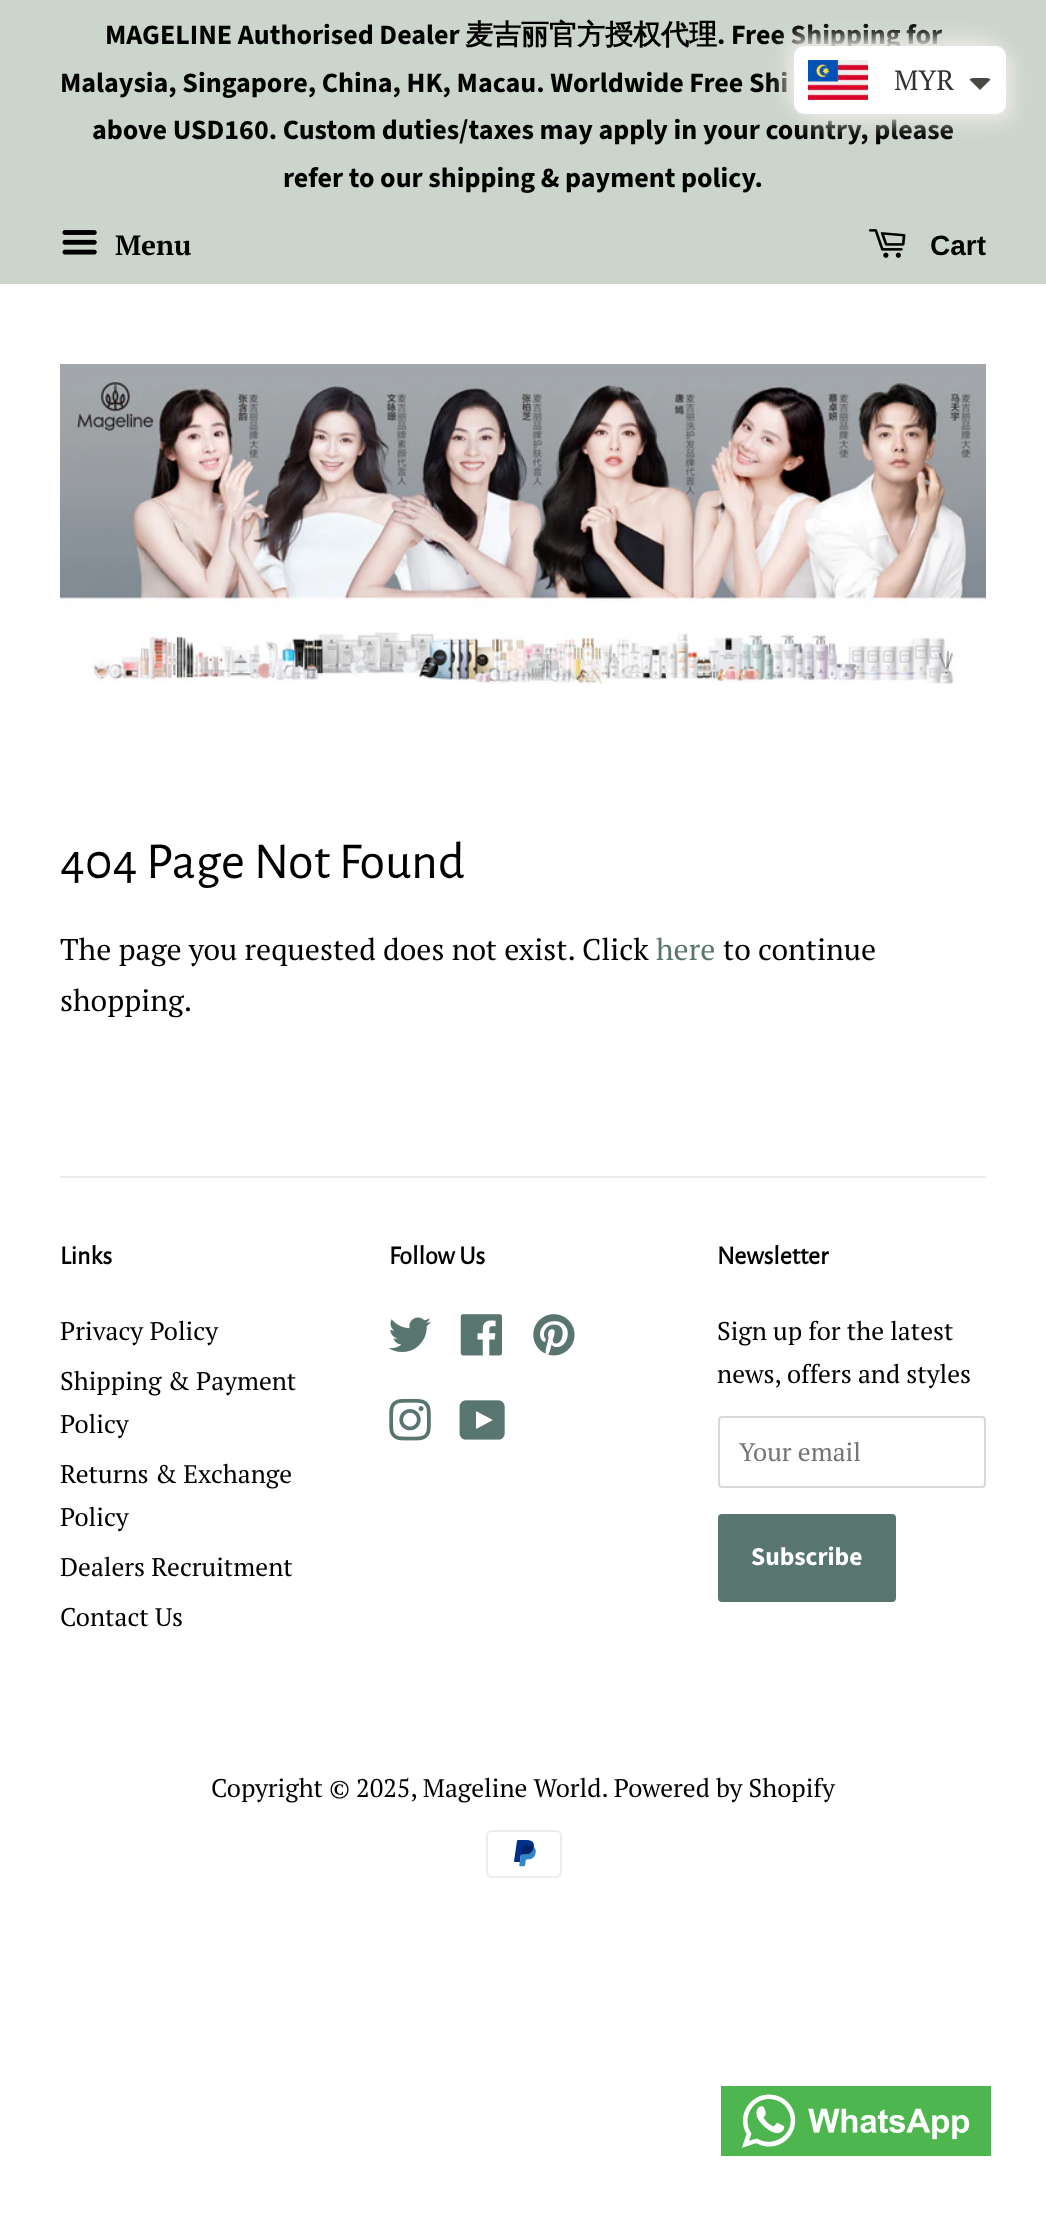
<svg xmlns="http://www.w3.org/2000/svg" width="1046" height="2236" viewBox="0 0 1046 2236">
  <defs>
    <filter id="blur1" x="-50%" y="-200%" width="200%" height="500%"><feGaussianBlur stdDeviation="9"/></filter>
  </defs>
  <rect width="100%" height="100%" fill="#ffffff"/>
  <rect x="0" y="0" width="1046" height="284" fill="#cbd5cc"/>
  <text x="105" y="44" font-family="Source Sans Pro" font-size="28" font-weight="bold" fill="#000000">MAGELINE Authorised Dealer</text>
  <text x="465" y="44" font-family="WenQuanYi Zen Hei" font-size="28" font-weight="bold" fill="#000000">麦吉丽官方授权代理</text>
  <text x="717" y="44" font-family="Source Sans Pro" font-size="28" font-weight="bold" fill="#000000">. Free Shipping for</text>
  <text x="60" y="92" font-family="Source Sans Pro" font-size="28" font-weight="bold" fill="#000000">Malaysia, Singapore, China, HK, Macau. Worldwide Free Shi</text>
  <text x="92" y="139" font-family="Source Sans Pro" font-size="28" font-weight="bold" fill="#000000">above USD160. Custom duties/taxes may apply in your country, please</text>
  <text x="283" y="187" font-family="Source Sans Pro" font-size="28" font-weight="bold" fill="#000000">refer to our shipping &amp; payment policy.</text>
  <image x="62" y="230" width="35" height="25" href="img1.png"/>
  <text x="115" y="255" font-family="PT Serif" font-size="28" font-weight="bold" fill="#000000">Menu</text>
  <image x="868" y="229" width="38" height="29" href="img2.png"/>
  <text x="930" y="255" font-family="Liberation Sans" font-size="28" font-weight="bold" fill="#000000">Cart</text>
  <image x="60" y="364" width="926" height="320" href="img3.png"/>
  <rect x="786" y="38" width="212" height="68" rx="10" fill="#e8e8e2" filter="url(#blur1)"/>
  <rect x="802" y="54" width="212" height="68" rx="10" fill="#e8e8e2" filter="url(#blur1)"/>
  <rect x="794" y="46" width="212" height="68" rx="10" fill="#ffffff"/>
  <image x="808" y="60" width="60" height="40" href="img4.png"/>
  <text x="894" y="90" font-family="PT Serif" font-size="28" fill="#333333">MYR</text>
  <path d="M974 78C972 78 971 78.5 969.5 79.5L980 90L990.5 79.5C989 78.5 988 78 986 78Z" fill="#474942"/>
  <text x="60" y="878" font-family="Alegreya Sans" font-size="52" fill="#000000">404 Page Not Found</text>
  <text x="60" y="960" font-family="PT Serif" font-size="30" fill="#000000">The page you requested does not exist. Click</text>
  <text x="656" y="960" font-family="PT Serif" font-size="30" fill="#59756f">here</text>
  <text x="723" y="960" font-family="PT Serif" font-size="30" fill="#000000">to continue</text>
  <text x="60" y="1011" font-family="PT Serif" font-size="30" fill="#000000">shopping.</text>
  <rect x="60" y="1176" width="926" height="2" fill="#ebebeb"/>
  <text x="60" y="1264" font-family="Alegreya Sans" font-size="26" font-weight="bold" fill="#000000">Links</text>
  <text x="60" y="1340" font-family="PT Serif" font-size="25.5" fill="#000000">Privacy Policy</text>
  <text x="60" y="1390" font-family="PT Serif" font-size="25.5" fill="#000000">Shipping &amp; Payment</text>
  <text x="60" y="1433" font-family="PT Serif" font-size="25.5" fill="#000000">Policy</text>
  <text x="60" y="1483" font-family="PT Serif" font-size="25.5" fill="#000000">Returns &amp; Exchange</text>
  <text x="60" y="1526" font-family="PT Serif" font-size="25.5" fill="#000000">Policy</text>
  <text x="60" y="1576" font-family="PT Serif" font-size="25.5" fill="#000000">Dealers Recruitment</text>
  <text x="60" y="1626" font-family="PT Serif" font-size="25.5" fill="#000000">Contact Us</text>
  <text x="389" y="1264" font-family="Alegreya Sans" font-size="26" font-weight="bold" fill="#000000">Follow Us</text>
  <image x="388" y="1317" width="43" height="35" href="img5.png"/>
  <image x="460" y="1314" width="42" height="42" href="img6.png"/>
  <image x="533" y="1314" width="42" height="42" href="img7.png"/>
  <image x="389" y="1398" width="42" height="43" href="img8.png"/>
  <image x="459" y="1400" width="46" height="40" href="img9.png"/>
  <text x="717" y="1264" font-family="Alegreya Sans" font-size="26" font-weight="bold" fill="#000000">Newsletter</text>
  <text x="717" y="1340" font-family="PT Serif" font-size="25.5" fill="#000000">Sign up for the latest</text>
  <text x="717" y="1383" font-family="PT Serif" font-size="25.5" fill="#000000">news, offers and styles</text>
  <rect x="719" y="1417" width="266" height="70" rx="3" fill="none" stroke="#d9d9d9" stroke-width="2"/>
  <text x="739" y="1461" font-family="PT Serif" font-size="25.5" fill="#757575">Your email</text>
  <rect x="718" y="1514" width="178" height="88" rx="4" fill="#59756f"/>
  <text x="751" y="1565" font-family="Source Sans Pro" font-size="25.5" font-weight="bold" fill="#ffffff">Subscribe</text>
  <text x="211" y="1797" font-family="PT Serif" font-size="25.5" fill="#000000">Copyright © 2025, Mageline World. Powered by Shopify</text>
  <image x="486" y="1830" width="76" height="48" href="img10.png"/>
  <image x="721" y="2086" width="270" height="70" href="img11.png"/>
</svg>
